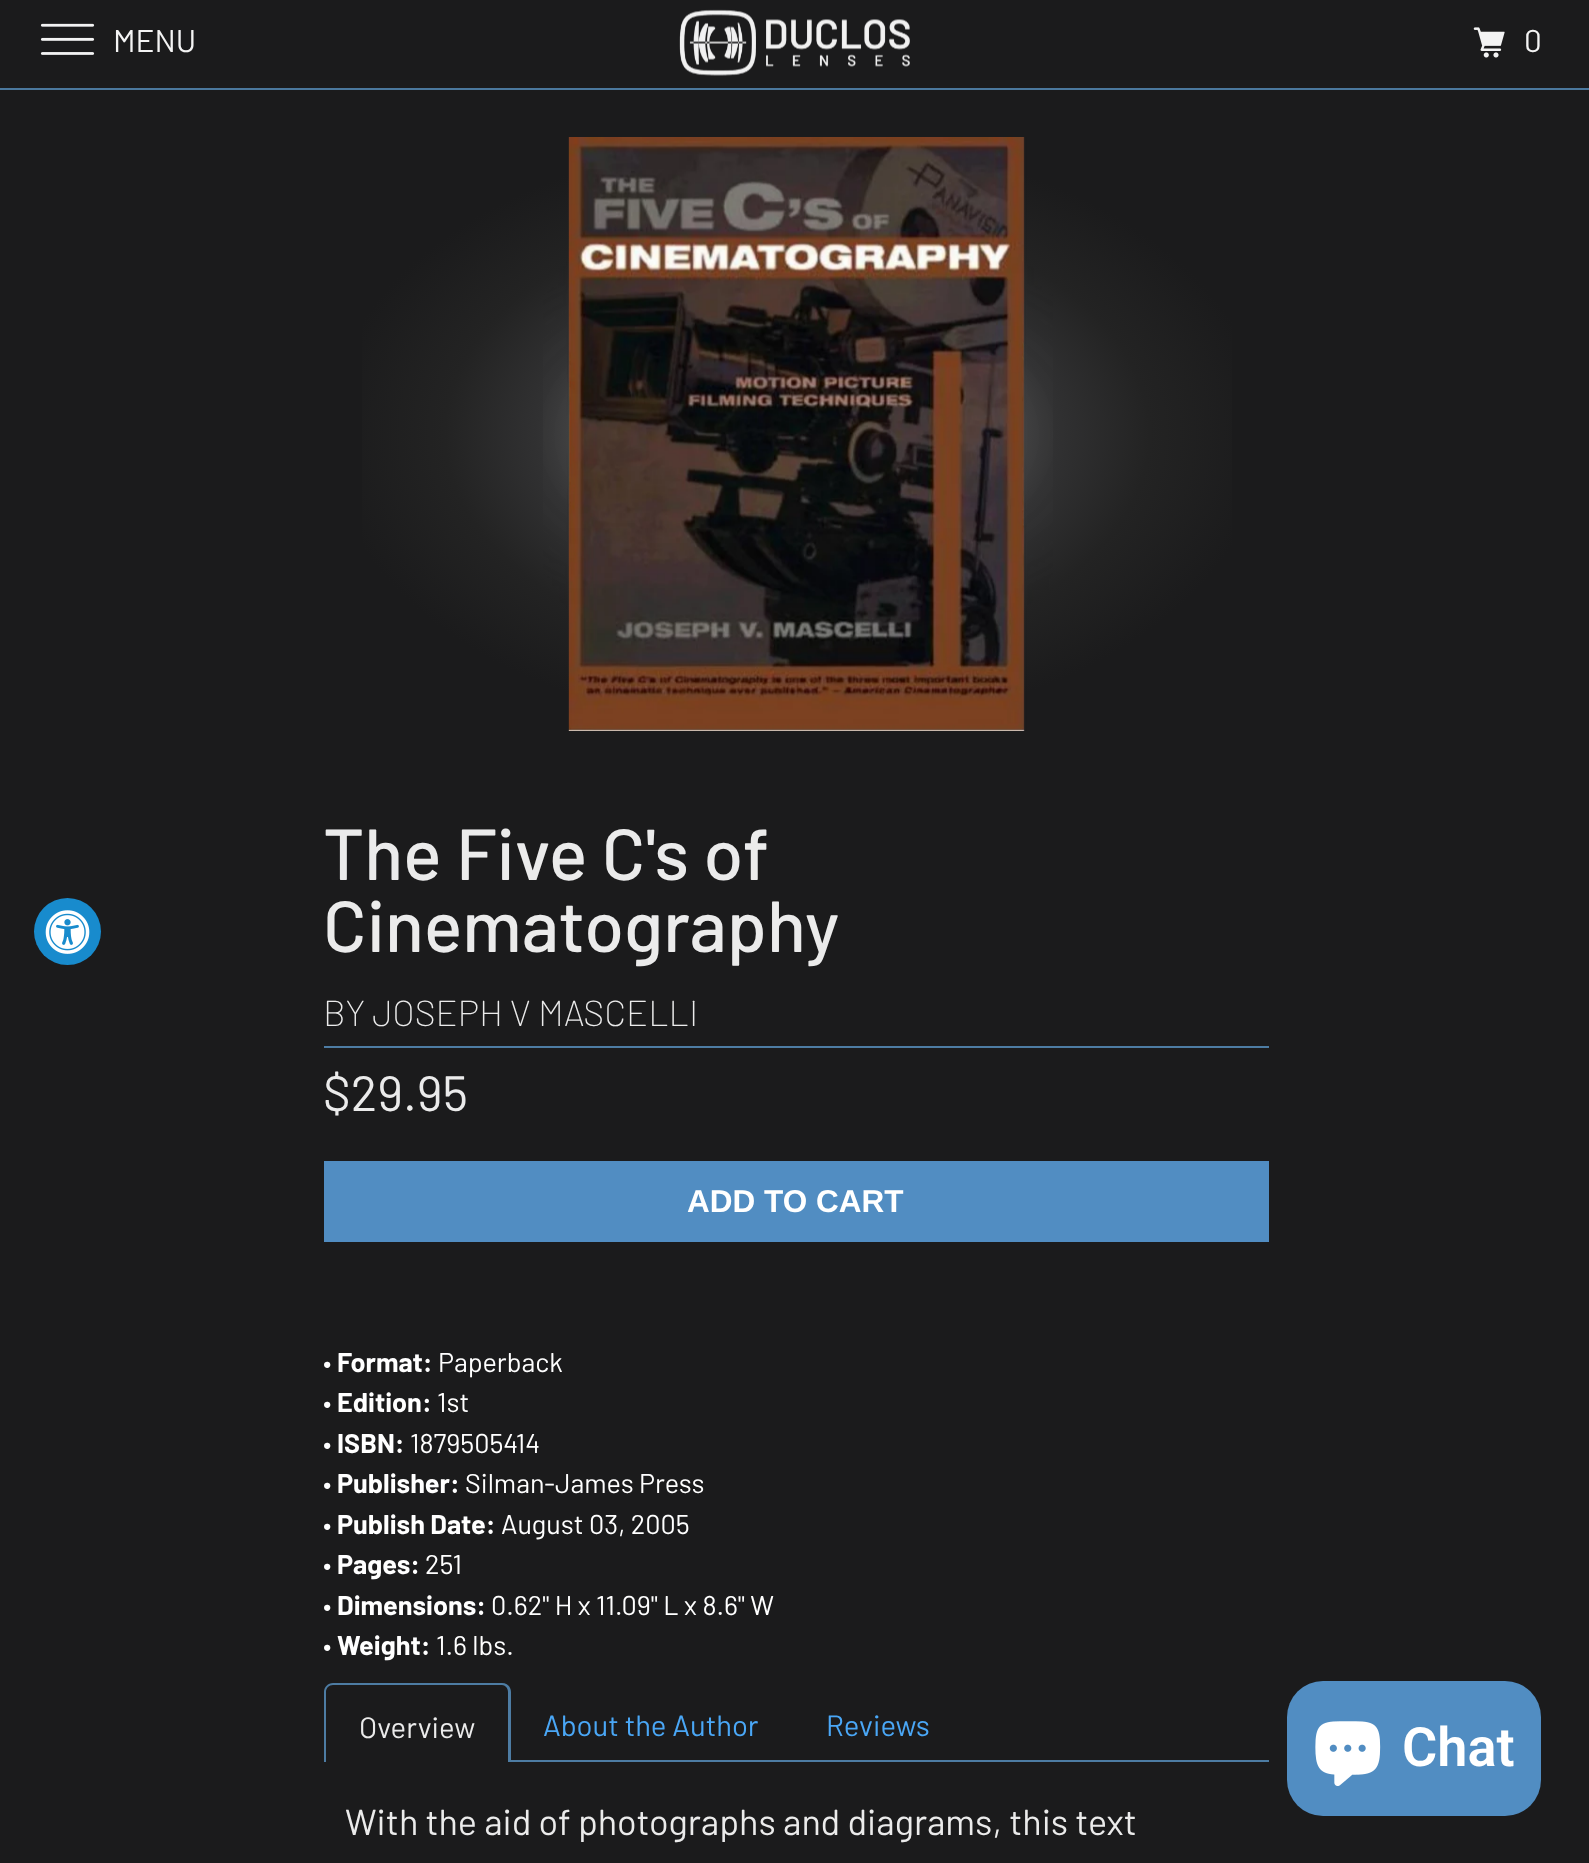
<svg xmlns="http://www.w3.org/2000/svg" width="1589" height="1863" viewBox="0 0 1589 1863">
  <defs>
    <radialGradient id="g1" gradientUnits="userSpaceOnUse" cx="0" cy="0" r="1" gradientTransform="matrix(470 0 0 297 797 434)"><stop offset="0" stop-color="#5a5a5a"/><stop offset="0.3" stop-color="#5a5a5a"/><stop offset="0.55" stop-color="#313132"/><stop offset="0.75" stop-color="#232323"/><stop offset="1" stop-color="#1b1b1c"/></radialGradient>
  </defs>
  <rect width="100%" height="100%" fill="#1b1b1c"/>
  <rect x="0" y="88" width="1589" height="2" fill="#4b789d"/>
  <image x="40" y="23" width="55" height="32" href="img1.png"/>
  <text x="113" y="52" font-family="Barlow" font-size="31.5" fill="#f4f4f4">MENU</text>
  <image x="679" y="9" width="231" height="67" href="img2.png"/>
  <image x="1473" y="27" width="32" height="31" href="img3.png"/>
  <text x="1524" y="52" font-family="Barlow" font-size="31.5" fill="#f4f4f4">0</text>
  <circle cx="67.5" cy="931.5" r="33.5" fill="#188bcd"/>
  <image x="45" y="910" width="45" height="44" href="img4.png"/>
  <rect x="362" y="161" width="870" height="546" fill="url(#g1)"/>
  <image x="543" y="137" width="510" height="594" href="img5.png"/>
  <text x="323" y="880" font-family="Barlow" font-size="72" font-weight="500" fill="#ebebeb">The Five C's of</text>
  <text x="323" y="952" font-family="Barlow" font-size="72" font-weight="500" fill="#ebebeb">Cinematography</text>
  <text x="323" y="1026" font-family="Barlow" font-size="36" font-weight="200" fill="#ebebeb">BY JOSEPH V MASCELLI</text>
  <rect x="324" y="1046" width="945" height="2" fill="#4d7ca3"/>
  <text x="323" y="1111" font-family="Barlow" font-size="49.5" fill="#ebebeb">$29.95</text>
  <rect x="324" y="1161" width="945" height="81" fill="#518dc2"/>
  <text x="687" y="1212" font-family="Liberation Sans" font-size="31.5" font-weight="bold" fill="#ffffff">ADD TO CART</text>
  <text x="323" y="1372" font-family="Barlow" font-size="27" fill="#ffffff">•</text>
  <text x="337" y="1372" font-family="Barlow" font-size="27" font-weight="bold" fill="#ffffff">Format:</text>
  <text x="438" y="1372" font-family="Barlow" font-size="27" fill="#ffffff">Paperback</text>
  <text x="323" y="1412" font-family="Barlow" font-size="27" fill="#ffffff">•</text>
  <text x="337" y="1412" font-family="Barlow" font-size="27" font-weight="bold" fill="#ffffff">Edition:</text>
  <text x="437" y="1412" font-family="Barlow" font-size="27" fill="#ffffff">1st</text>
  <text x="323" y="1453" font-family="Barlow" font-size="27" fill="#ffffff">•</text>
  <text x="337" y="1453" font-family="Barlow" font-size="27" font-weight="bold" fill="#ffffff">ISBN:</text>
  <text x="410" y="1453" font-family="Barlow" font-size="27" fill="#ffffff">1879505414</text>
  <text x="323" y="1493" font-family="Barlow" font-size="27" fill="#ffffff">•</text>
  <text x="337" y="1493" font-family="Barlow" font-size="27" font-weight="bold" fill="#ffffff">Publisher:</text>
  <text x="465" y="1493" font-family="Barlow" font-size="27" fill="#ffffff">Silman-James Press</text>
  <text x="323" y="1534" font-family="Barlow" font-size="27" fill="#ffffff">•</text>
  <text x="337" y="1534" font-family="Barlow" font-size="27" font-weight="bold" fill="#ffffff">Publish Date:</text>
  <text x="501" y="1534" font-family="Barlow" font-size="27" fill="#ffffff">August 03, 2005</text>
  <text x="323" y="1574" font-family="Barlow" font-size="27" fill="#ffffff">•</text>
  <text x="337" y="1574" font-family="Barlow" font-size="27" font-weight="bold" fill="#ffffff">Pages:</text>
  <text x="425" y="1574" font-family="Barlow" font-size="27" fill="#ffffff">251</text>
  <text x="323" y="1615" font-family="Barlow" font-size="27" fill="#ffffff">•</text>
  <text x="337" y="1615" font-family="Barlow" font-size="27" font-weight="bold" fill="#ffffff">Dimensions:</text>
  <text x="491" y="1615" font-family="Barlow" font-size="27" fill="#ffffff">0.62" H x 11.09" L x 8.6" W</text>
  <text x="323" y="1655" font-family="Barlow" font-size="27" fill="#ffffff">•</text>
  <text x="337" y="1655" font-family="Barlow" font-size="27" font-weight="bold" fill="#ffffff">Weight:</text>
  <text x="436" y="1655" font-family="Barlow" font-size="27" fill="#ffffff">1.6 lbs.</text>
  <rect x="511" y="1760" width="758" height="2" fill="#4d7ca3"/>
  <path d="M333 1683H502C507 1683 511 1687 511 1692V1762H324V1692C324 1687 328 1683 333 1683ZM333 1685H502C505 1685 508 1688 508 1692V1762H326V1692C326 1688 329 1685 333 1685Z" fill="#4d7ca3" fill-rule="evenodd"/>
  <text x="359" y="1738" font-family="Barlow" font-size="29.25" fill="#ebebeb">Overview</text>
  <text x="543" y="1736" font-family="Barlow" font-size="29.25" fill="#4aa7f6">About the Author</text>
  <text x="826" y="1736" font-family="Barlow" font-size="29.25" fill="#4aa7f6">Reviews</text>
  <text x="345" y="1835" font-family="Barlow" font-size="36" fill="#ebebeb">With the aid of photographs and diagrams, this text</text>
  <rect x="1287" y="1681" width="254" height="135" rx="36" fill="#518dc2"/>
  <image x="1315" y="1721" width="66" height="65" href="img6.png"/>
  <text x="1402" y="1766" font-family="Roboto" font-size="54" font-weight="600" fill="#ffffff">Chat</text>
</svg>
